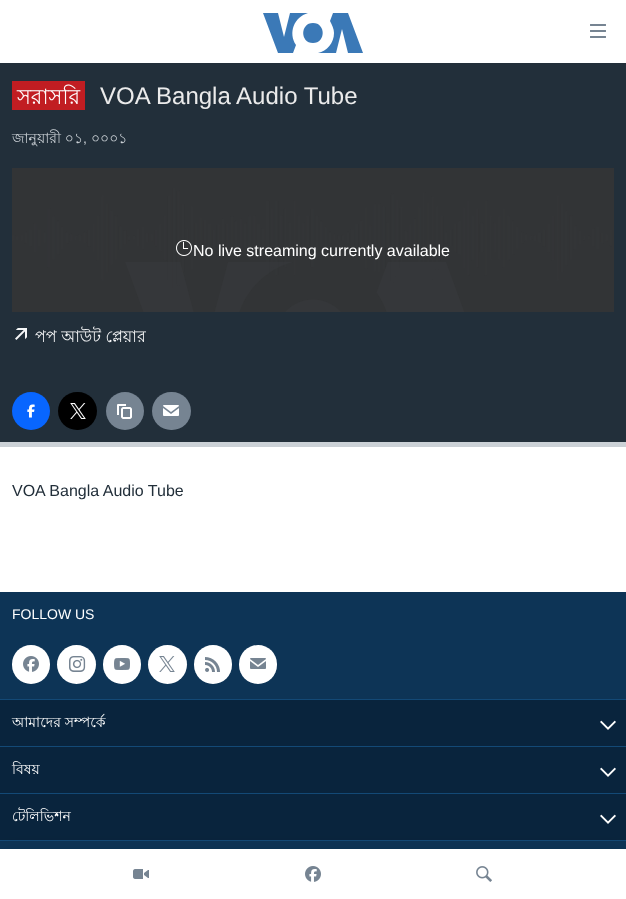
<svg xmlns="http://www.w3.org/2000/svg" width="626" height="899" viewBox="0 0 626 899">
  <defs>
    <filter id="blur1" x="-50%" y="-200%" width="200%" height="500%"><feGaussianBlur stdDeviation="10"/></filter>
  </defs>
  <rect width="100%" height="100%" fill="#ffffff"/>
  <path d="M296 45L293 53H278L263 13H278L284 37L290 13H308C294 17 288 33 296 45ZM313 23C300 23 300 43 313 43C326 43 326 23 313 23ZM334 33C334 43 327 51 318 53H336L342 29L348 53H363L348 13H333L330 21C332 25 334 29 334 33Z" fill="#3b79b7"/>
  <image x="590" y="24" width="16" height="14" href="img1.png"/>
  <rect x="0" y="592" width="626" height="257" fill="#0d3456"/>
  <rect x="0" y="840" width="626" height="1" fill="#134976"/>
  <rect x="0" y="794" width="626" height="46" fill="#09243d"/>
  <image x="600" y="814" width="16" height="10" href="img18.png"/>
  <rect x="0" y="849" width="626" height="50" fill="#000000" fill-opacity="0.1" filter="url(#blur1)"/>
  <rect x="0" y="849" width="626" height="50" fill="#ffffff"/>
  <image x="133" y="869" width="16" height="10" href="img2.png"/>
  <image x="305" y="866" width="16" height="16" href="img3.png"/>
  <image x="476" y="866" width="16" height="16" href="img4.png"/>
  <rect x="0" y="63" width="626" height="379" fill="#222f3a"/>
  <rect x="0" y="442" width="626" height="5" fill="#cbd1d6"/>
  <rect x="12" y="81" width="73" height="29" fill="#c11d22"/>
  <text x="17" y="104" font-family="Lohit Bengali" font-size="21" fill="#ffffff">সরাসরি</text>
  <text x="100" y="104" font-family="Liberation Sans" font-size="24" fill="#ebebeb">VOA Bangla Audio Tube</text>
  <text x="12" y="143" font-family="Lohit Bengali" font-size="14" fill="#cbd1d6">জানুয়ারী ০১</text>
  <text x="83" y="143" font-family="Liberation Sans" font-size="14" fill="#cbd1d6">,</text>
  <text x="91" y="143" font-family="Lohit Bengali" font-size="14" fill="#cbd1d6">০০০১</text>
  <rect x="12" y="168" width="602" height="144" fill="#323436"/>
  <image x="12" y="188" width="601" height="100" href="img5.png"/>
  <image x="176" y="240" width="16" height="16" href="img6.png"/>
  <text x="193" y="256" font-family="Liberation Sans" font-size="16" fill="#ffffff">No live streaming currently available</text>
  <image x="125" y="262" width="339" height="50" href="img7.png"/>
  <image x="15" y="328" width="12" height="12" href="img8.png"/>
  <text x="35" y="342" font-family="Lohit Bengali" font-size="16" fill="#f6f7f8">পপ আউট প্লেয়ার</text>
  <circle cx="31" cy="411" r="19" fill="#0866ff"/>
  <image x="27" y="404" width="8" height="14" href="img9.png"/>
  <rect x="58" y="392" width="39" height="38" rx="19" fill="#000000"/>
  <image x="70" y="403" width="16" height="16" href="img10.png"/>
  <circle cx="125" cy="411" r="19" fill="#768492"/>
  <image x="117" y="404" width="15" height="15" href="img11.png"/>
  <rect x="152" y="392" width="39" height="38" rx="19" fill="#768492"/>
  <image x="163" y="405" width="16" height="11" href="img12.png"/>
  <text x="12" y="496" font-family="Liberation Sans" font-size="16" fill="#222f3a">VOA Bangla Audio Tube</text>
  <text x="12" y="619" font-family="Liberation Sans" font-size="14" fill="#ffffff">FOLLOW US</text>
  <rect x="12" y="645" width="38" height="39" rx="19" fill="#ffffff"/>
  <image x="23" y="656" width="16" height="16" href="img3.png"/>
  <circle cx="76.5" cy="664.5" r="19.5" fill="#ffffff"/>
  <image x="69" y="656" width="17" height="16" href="img13.png"/>
  <rect x="103" y="645" width="38" height="39" rx="19" fill="#ffffff"/>
  <image x="114" y="658" width="16" height="12" href="img14.png"/>
  <circle cx="167.5" cy="664.5" r="19.5" fill="#ffffff"/>
  <image x="159" y="656" width="16" height="16" href="img15.png"/>
  <rect x="194" y="645" width="38" height="39" rx="19" fill="#ffffff"/>
  <image x="205" y="657" width="15" height="15" href="img16.png"/>
  <rect x="239" y="645" width="38" height="39" rx="19" fill="#ffffff"/>
  <image x="250" y="658" width="16" height="11" href="img17.png"/>
  <rect x="0" y="699" width="626" height="1" fill="#134976"/>
  <rect x="0" y="700" width="626" height="46" fill="#09243d"/>
  <text x="12" y="727" font-family="Lohit Bengali" font-size="14" fill="#ffffff">আমাদের সম্পর্কে</text>
  <image x="600" y="720" width="16" height="10" href="img18.png"/>
  <rect x="0" y="746" width="626" height="1" fill="#134976"/>
  <rect x="0" y="747" width="626" height="46" fill="#09243d"/>
  <text x="12" y="774" font-family="Lohit Bengali" font-size="14" fill="#ffffff">বিষয়</text>
  <image x="600" y="767" width="16" height="10" href="img18.png"/>
  <rect x="0" y="793" width="626" height="1" fill="#134976"/>
  <text x="12" y="821" font-family="Lohit Bengali" font-size="14" fill="#ffffff">টেলিভিশন</text>
</svg>
